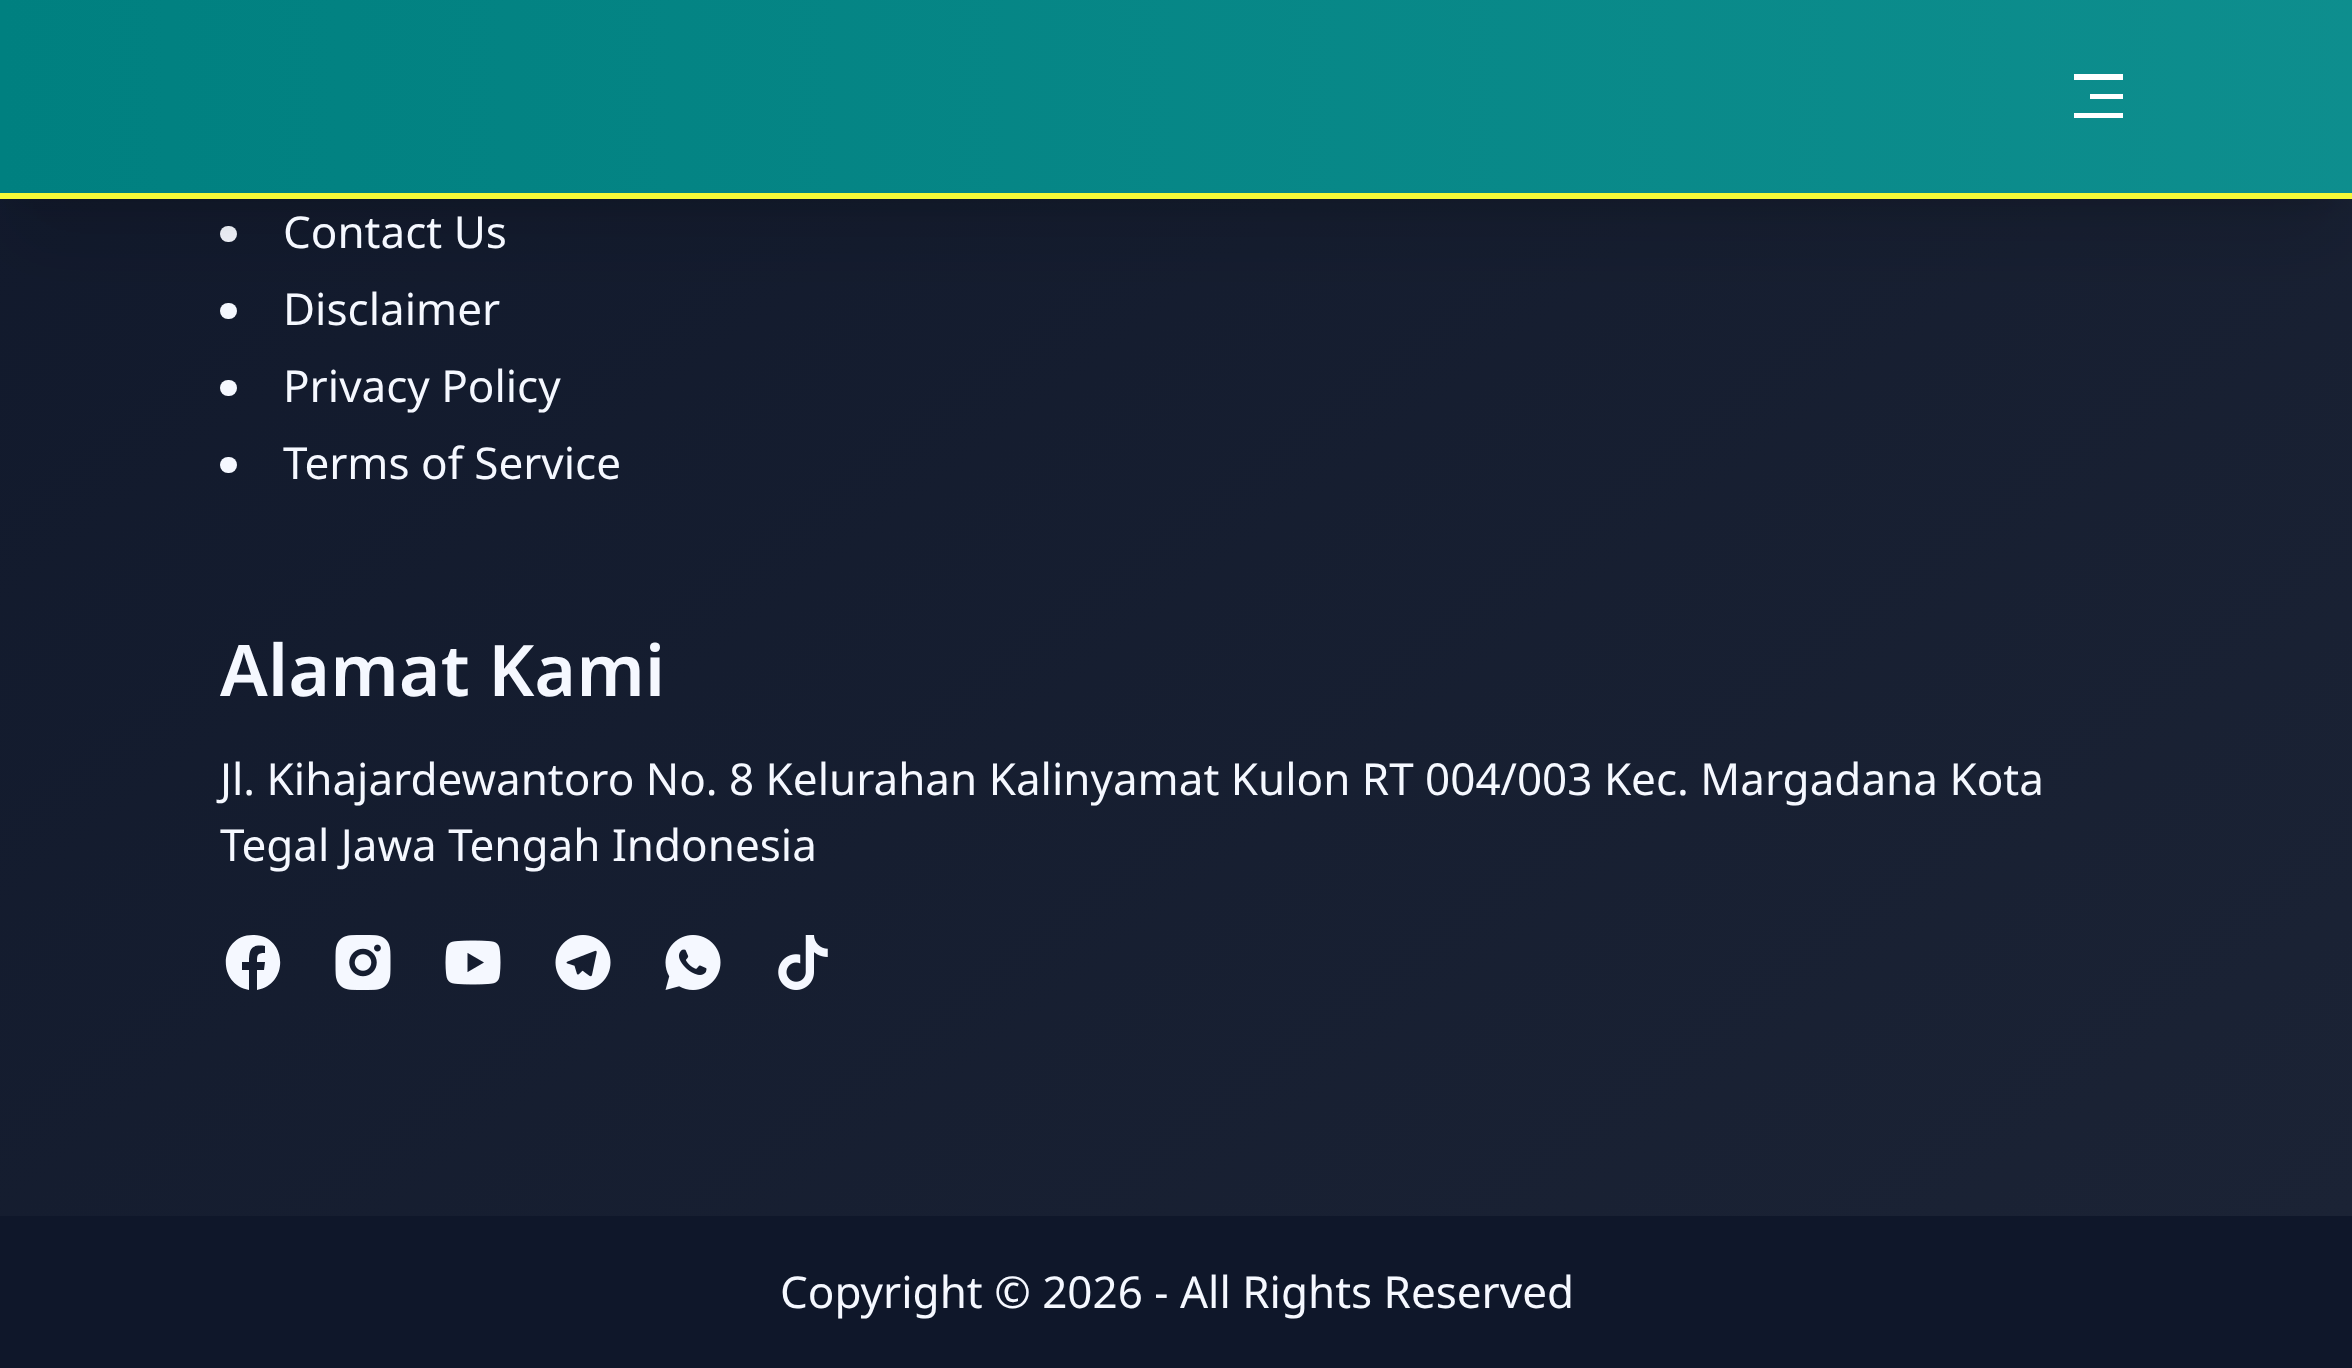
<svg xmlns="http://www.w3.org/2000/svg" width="2352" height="1368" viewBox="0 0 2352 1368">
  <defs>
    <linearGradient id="g1" gradientUnits="userSpaceOnUse" x1="299" y1="-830" x2="2055" y2="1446"><stop offset="0" stop-color="#0f172a"/><stop offset="1" stop-color="#1b2335"/></linearGradient>
    <filter id="blur1" x="-50%" y="-200%" width="200%" height="500%"><feGaussianBlur stdDeviation="14"/></filter>
    <filter id="blur2" x="-50%" y="-200%" width="200%" height="500%"><feGaussianBlur stdDeviation="34.5"/></filter>
    <linearGradient id="g2" gradientUnits="userSpaceOnUse" x1="0" y1="96" x2="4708" y2="96"><stop offset="0" stop-color="#008080"/><stop offset="1" stop-color="#1b9c9c"/></linearGradient>
  </defs>
  <rect width="100%" height="100%" fill="#ffffff"/>
  <rect x="0" y="199" width="2352" height="1017" fill="url(#g1)"/>
  <rect x="220" y="226" width="17" height="16" rx="8" fill="#f5f8ff"/>
  <rect x="17" y="39" width="2321" height="165" fill="#000000" fill-opacity="0.1" filter="url(#blur1)"/>
  <rect x="220" y="303" width="17" height="16" rx="8" fill="#f5f8ff"/>
  <rect x="14" y="69" width="2326" height="170" fill="#000000" fill-opacity="0.1" filter="url(#blur2)"/>
  <rect x="0" y="0" width="2352" height="193" fill="url(#g2)"/>
  <rect x="0" y="193" width="2352" height="6" fill="#f6f937"/>
  <path d="M2074 74H2123V80H2074ZM2090 94H2123V99H2090ZM2074 113H2123V118H2074Z" fill="#ffffff"/>
  <text x="283" y="248" font-family="Noto Sans" font-size="44" fill="#f5f8ff">Contact Us</text>
  <text x="283" y="325" font-family="Noto Sans" font-size="44" fill="#f5f8ff">Disclaimer</text>
  <rect x="220" y="380" width="17" height="16" rx="8" fill="#f5f8ff"/>
  <text x="283" y="402" font-family="Noto Sans" font-size="44" fill="#f5f8ff">Privacy Policy</text>
  <rect x="220" y="457" width="17" height="16" rx="8" fill="#f5f8ff"/>
  <text x="283" y="479" font-family="Noto Sans" font-size="44" fill="#f5f8ff">Terms of Service</text>
  <text x="220" y="696" font-family="Noto Sans" font-size="71.25" font-weight="600" fill="#f5f8ff">Alamat Kami</text>
  <text x="220" y="795" font-family="Noto Sans" font-size="44" fill="#f5f8ff">Jl. Kihajardewantoro No. 8 Kelurahan Kalinyamat Kulon RT 004/003 Kec. Margadana Kota</text>
  <text x="220" y="861" font-family="Noto Sans" font-size="44" fill="#f5f8ff">Tegal Jawa Tengah Indonesia</text>
  <path d="M253 935C219 935 216 984 249 990V970H242V962H249C249 949 251 944 265 946V953C257 953 257 955 257 962H265L264 970H257V990C290 984 287 935 253 935Z" fill="#f5f8ff"/>
  <image x="335" y="935" width="56" height="55" href="img1.png"/>
  <image x="445" y="940" width="56" height="45" href="img2.png"/>
  <image x="555" y="935" width="56" height="55" href="img3.png"/>
  <image x="665" y="935" width="56" height="55" href="img4.png"/>
  <image x="778" y="935" width="50" height="55" href="img5.png"/>
  <rect x="0" y="1216" width="2352" height="152" fill="#0f172a"/>
  <text x="780" y="1308" font-family="Noto Sans" font-size="44" fill="#f5f8ff">Copyright © 2026 - All Rights Reserved</text>
</svg>
